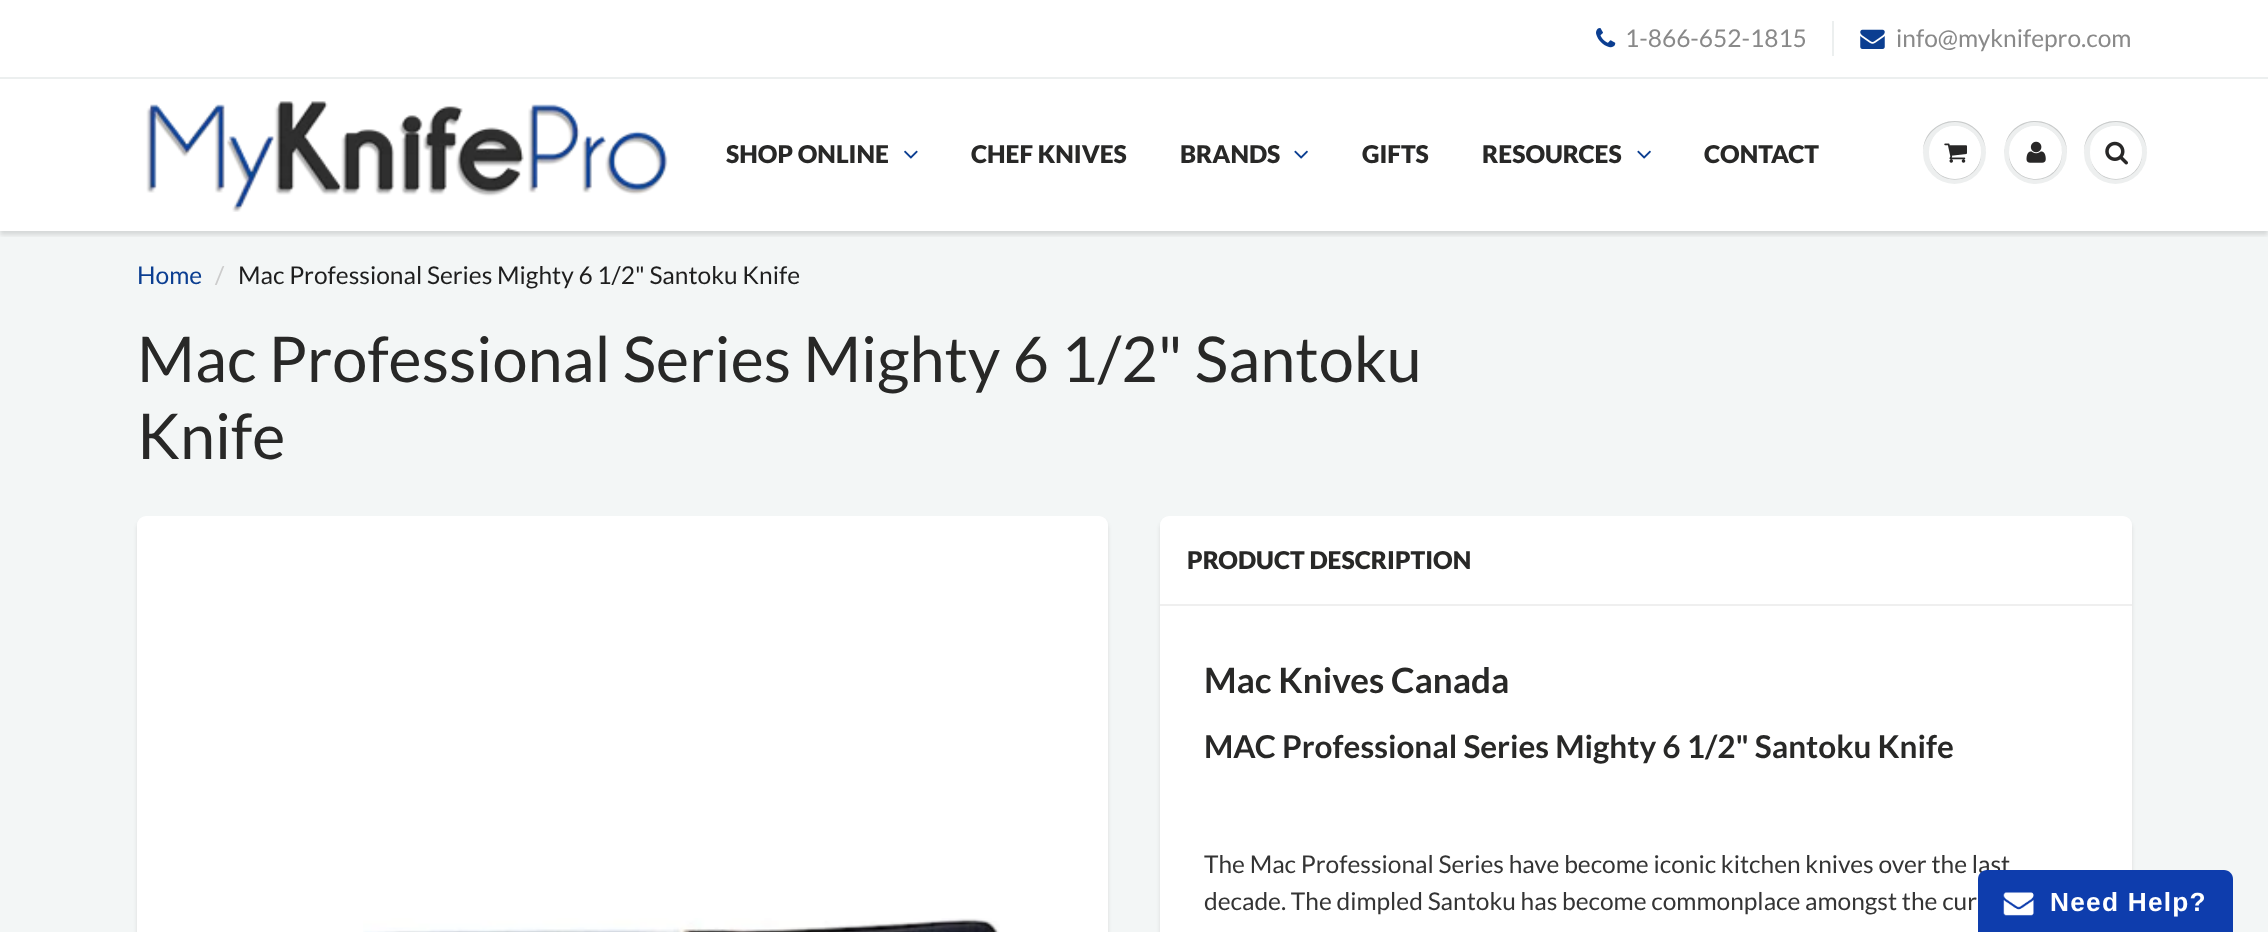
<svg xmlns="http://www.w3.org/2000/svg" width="2268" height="932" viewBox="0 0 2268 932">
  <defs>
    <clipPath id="clip1"><rect x="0" y="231" width="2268" height="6"/></clipPath>
    <filter id="blur1" x="-50%" y="-200%" width="200%" height="500%"><feGaussianBlur stdDeviation="2"/></filter>
  </defs>
  <rect width="100%" height="100%" fill="#ffffff"/>
  <image x="1596" y="28" width="20" height="20" href="img1.png"/>
  <text x="1625" y="47" font-family="Lato" font-size="24.5" fill="#898989">1-866-652-1815</text>
  <rect x="1832" y="21" width="2" height="35" fill="#ecefef"/>
  <image x="1860" y="29" width="25" height="20" href="img2.png"/>
  <text x="1896" y="47" font-family="Lato" font-size="24.5" fill="#898989">info@myknifepro.com</text>
  <rect x="0" y="231" width="2268" height="701" fill="#f3f6f6"/>
  <g clip-path="url(#clip1)">
    <rect x="0" y="81" width="2268" height="154" fill="#0b191c" fill-opacity="0.12" filter="url(#blur1)"/>
  </g>
  <rect x="0" y="77" width="2268" height="2" fill="#ecefef"/>
  <image x="146" y="101" width="522" height="111" href="img3.png"/>
  <text x="726" y="163" font-family="Lato" font-size="24.5" font-weight="900" fill="#282827">SHOP ONLINE</text>
  <image x="904" y="150" width="14" height="9" href="img4.png"/>
  <text x="971" y="163" font-family="Lato" font-size="24.5" font-weight="900" fill="#282827">CHEF KNIVES</text>
  <text x="1180" y="163" font-family="Lato" font-size="24.5" font-weight="900" fill="#282827">BRANDS</text>
  <image x="1294" y="150" width="14" height="9" href="img5.png"/>
  <text x="1362" y="163" font-family="Lato" font-size="24.5" font-weight="900" fill="#282827">GIFTS</text>
  <text x="1482" y="163" font-family="Lato" font-size="24.5" font-weight="900" fill="#282827">RESOURCES</text>
  <image x="1637" y="150" width="14" height="9" href="img5.png"/>
  <text x="1704" y="163" font-family="Lato" font-size="24.5" font-weight="900" fill="#282827">CONTACT</text>
  <circle cx="1954.5" cy="152.5" r="31.5" fill="#edefef"/>
  <path d="M1955 122C1972 122 1986 137 1986 153C1986 147 1984 140 1981 135C1963 109 1922 122 1923 153C1923 137 1937 122 1955 122ZM1930 160C1937 190 1982 184 1981 153C1980 182 1939 188 1930 160Z" fill="#c9cbcb"/>
  <rect x="1929" y="126" width="52" height="53" rx="26" fill="#ffffff"/>
  <path d="M1955 128C1969 128 1981 140 1981 154C1982 124 1941 115 1931 143C1935 134 1944 128 1955 128Z" fill="#ffffff"/>
  <image x="1944" y="143" width="23" height="20" href="img6.png"/>
  <circle cx="2035.5" cy="152.5" r="31.5" fill="#edefef"/>
  <path d="M2035 122C2053 122 2067 137 2067 153C2068 122 2027 109 2009 135C2006 140 2004 147 2004 153C2004 137 2018 122 2035 122Z" fill="#c9cbcb"/>
  <path d="M2009 153C2008 182 2049 190 2060 164C2062 158 2063 152 2061 146C2062 151 2062 157 2059 162C2049 188 2010 181 2009 153Z" fill="#c9cbcb"/>
  <circle cx="2035.5" cy="152.5" r="26.5" fill="#ffffff"/>
  <path d="M2035 128C2050 128 2062 140 2062 153C2063 127 2028 116 2014 138C2010 142 2009 148 2009 153C2009 140 2021 128 2035 128Z" fill="#ffffff"/>
  <image x="2026" y="141" width="20" height="22" href="img7.png"/>
  <circle cx="2115.5" cy="152.5" r="31.5" fill="#edefef"/>
  <path d="M2116 122C2133 122 2147 137 2147 153C2147 147 2145 140 2142 135C2124 109 2083 122 2084 153C2084 137 2098 122 2116 122ZM2142 153C2141 182 2100 188 2091 160C2098 190 2143 184 2142 153Z" fill="#c9cbcb"/>
  <rect x="2090" y="126" width="52" height="53" rx="26" fill="#ffffff"/>
  <path d="M2116 128C2130 128 2142 140 2142 154C2143 117 2089 117 2090 153C2090 140 2101 128 2116 128Z" fill="#ffffff"/>
  <image x="2105" y="141" width="23" height="24" href="img8.png"/>
  <text x="137" y="284" font-family="Lato" font-size="24.5" fill="#0b3e91">Home</text>
  <text x="215" y="284" font-family="Lato" font-size="24.5" fill="#cccccc">/</text>
  <text x="238" y="284" font-family="Lato" font-size="24.5" fill="#1e1e1e">Mac Professional Series Mighty 6 1/2" Santoku Knife</text>
  <text x="137" y="382" font-family="Lato" font-size="63" fill="#282827">Mac Professional Series Mighty 6 1/2" Santoku</text>
  <text x="137" y="459" font-family="Lato" font-size="63" fill="#282827">Knife</text>
  <rect x="137" y="520" width="971" height="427" rx="9" fill="#0b191c" fill-opacity="0.1" filter="url(#blur1)"/>
  <rect x="137" y="516" width="971" height="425" rx="9" fill="#ffffff"/>
  <image x="363" y="918" width="637" height="14" href="img9.png"/>
  <rect x="1160" y="520" width="972" height="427" rx="9" fill="#0b191c" fill-opacity="0.1" filter="url(#blur1)"/>
  <rect x="1160" y="516" width="972" height="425" rx="9" fill="#ffffff"/>
  <rect x="1160" y="604" width="972" height="2" fill="#efefef"/>
  <text x="1187" y="569" font-family="Lato" font-size="24.5" font-weight="900" fill="#282827">PRODUCT DESCRIPTION</text>
  <text x="1204" y="693" font-family="Lato" font-size="35" font-weight="bold" fill="#282827">Mac Knives Canada</text>
  <text x="1204" y="758" font-family="Lato" font-size="31.5" font-weight="bold" fill="#282827">MAC Professional Series Mighty 6 1/2" Santoku Knife</text>
  <text x="1204" y="873" font-family="Lato" font-size="24.5" fill="#343434">The Mac Professional Series have become iconic kitchen knives over the last</text>
  <text x="1204" y="910" font-family="Lato" font-size="24.5" fill="#343434">decade. The dimpled Santoku has become commonplace amongst the cur</text>
  <path d="M1987 870H2224C2229 870 2233 874 2233 879V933H1978V879C1978 874 1982 870 1987 870Z" fill="#0e3dad"/>
  <image x="2003" y="892" width="31" height="24" href="img10.png"/>
  <text x="2050" y="911" font-family="Liberation Sans" font-size="26.25" font-weight="bold" letter-spacing="1.25" fill="#ffffff">Need Help?</text>
</svg>
